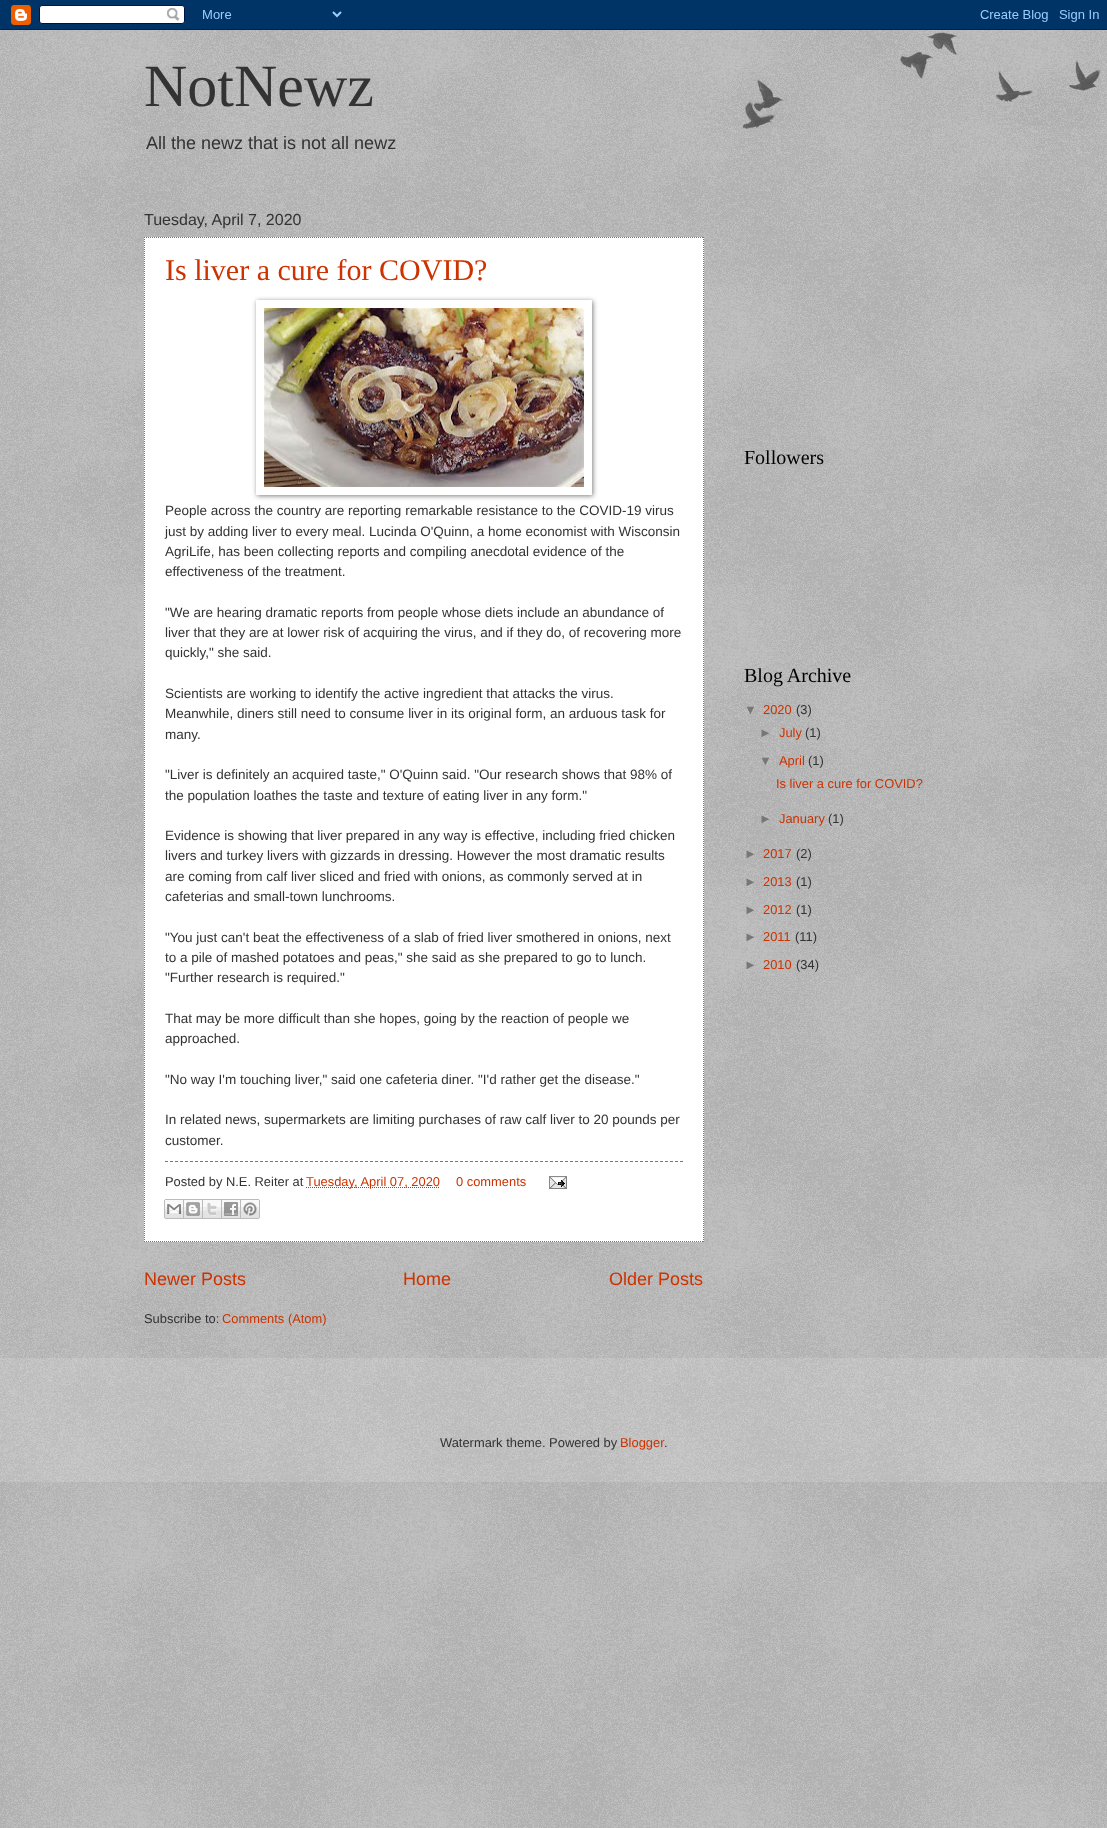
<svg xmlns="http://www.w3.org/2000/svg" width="1107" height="1828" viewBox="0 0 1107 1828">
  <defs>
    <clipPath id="clip1"><path d="M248 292H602V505H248ZM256 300H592V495H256Z" clip-rule="evenodd"/></clipPath>
    <filter id="blur1" x="-50%" y="-200%" width="200%" height="500%"><feGaussianBlur stdDeviation="2.5"/></filter>
  </defs>
  <rect width="100%" height="100%" fill="#777777"/>
  <image x="0" y="30" width="1107" height="1798" href="img1.png"/>
  <image x="0" y="0" width="1107" height="30" href="img2.png"/>
  <image x="742" y="32" width="359" height="97" href="img3.png"/>
  <text x="144" y="106" font-family="Liberation Serif" font-size="60" fill="#333333">NotNewz</text>
  <text x="146" y="149" font-family="Liberation Sans" font-size="18" fill="#333333">All the newz that is not all newz</text>
  <text x="144" y="225" font-family="Liberation Sans" font-size="16" fill="#333333">Tuesday, April 7, 2020</text>
  <rect x="144" y="237" width="560" height="1005" fill="#ffffff"/>
  <path d="M144 237.5H704" fill="none" stroke="#777777" stroke-dasharray="1 1"/>
  <path d="M703.5 237V1242" fill="none" stroke="#777777" stroke-dasharray="1 1"/>
  <path d="M144 1241.5H704" fill="none" stroke="#777777" stroke-dasharray="1 1"/>
  <path d="M144.5 237V1242" fill="none" stroke="#777777" stroke-dasharray="1 1"/>
  <text x="165" y="280" font-family="Liberation Serif" font-size="30" fill="#cc3300">Is liver a cure for COVID?</text>
  <g clip-path="url(#clip1)">
    <rect x="257" y="301" width="336" height="195" fill="#000000" fill-opacity="0.5" filter="url(#blur1)"/>
  </g>
  <image x="264" y="308" width="320" height="179" href="img4.png"/>
  <text x="165" y="515" font-family="Liberation Sans" font-size="13.5" fill="#333333">People across the country are reporting remarkable resistance to the COVID-19 virus</text>
  <text x="165" y="536" font-family="Liberation Sans" font-size="13.5" fill="#333333">just by adding liver to every meal. Lucinda O'Quinn, a home economist with Wisconsin</text>
  <text x="165" y="556" font-family="Liberation Sans" font-size="13.5" fill="#333333">AgriLife, has been collecting reports and compiling anecdotal evidence of the</text>
  <text x="165" y="576" font-family="Liberation Sans" font-size="13.5" fill="#333333">effectiveness of the treatment.</text>
  <text x="165" y="617" font-family="Liberation Sans" font-size="13.5" fill="#333333">"We are hearing dramatic reports from people whose diets include an abundance of</text>
  <text x="165" y="637" font-family="Liberation Sans" font-size="13.5" fill="#333333">liver that they are at lower risk of acquiring the virus, and if they do, of recovering more</text>
  <text x="165" y="657" font-family="Liberation Sans" font-size="13.5" fill="#333333">quickly," she said.</text>
  <text x="165" y="698" font-family="Liberation Sans" font-size="13.5" fill="#333333">Scientists are working to identify the active ingredient that attacks the virus.</text>
  <text x="165" y="718" font-family="Liberation Sans" font-size="13.5" fill="#333333">Meanwhile, diners still need to consume liver in its original form, an arduous task for</text>
  <text x="165" y="739" font-family="Liberation Sans" font-size="13.5" fill="#333333">many.</text>
  <text x="165" y="779" font-family="Liberation Sans" font-size="13.5" fill="#333333">"Liver is definitely an acquired taste," O'Quinn said. "Our research shows that 98% of</text>
  <text x="165" y="800" font-family="Liberation Sans" font-size="13.5" fill="#333333">the population loathes the taste and texture of eating liver in any form."</text>
  <text x="165" y="840" font-family="Liberation Sans" font-size="13.5" fill="#333333">Evidence is showing that liver prepared in any way is effective, including fried chicken</text>
  <text x="165" y="860" font-family="Liberation Sans" font-size="13.5" fill="#333333">livers and turkey livers with gizzards in dressing. However the most dramatic results</text>
  <text x="165" y="881" font-family="Liberation Sans" font-size="13.5" fill="#333333">are coming from calf liver sliced and fried with onions, as commonly served at in</text>
  <text x="165" y="901" font-family="Liberation Sans" font-size="13.5" fill="#333333">cafeterias and small-town lunchrooms.</text>
  <text x="165" y="942" font-family="Liberation Sans" font-size="13.5" fill="#333333">"You just can't beat the effectiveness of a slab of fried liver smothered in onions, next</text>
  <text x="165" y="962" font-family="Liberation Sans" font-size="13.5" fill="#333333">to a pile of mashed potatoes and peas," she said as she prepared to go to lunch.</text>
  <text x="165" y="982" font-family="Liberation Sans" font-size="13.5" fill="#333333">"Further research is required."</text>
  <text x="165" y="1023" font-family="Liberation Sans" font-size="13.5" fill="#333333">That may be more difficult than she hopes, going by the reaction of people we</text>
  <text x="165" y="1043" font-family="Liberation Sans" font-size="13.5" fill="#333333">approached.</text>
  <text x="165" y="1084" font-family="Liberation Sans" font-size="13.5" fill="#333333">"No way I'm touching liver," said one cafeteria diner. "I'd rather get the disease."</text>
  <text x="165" y="1124" font-family="Liberation Sans" font-size="13.5" fill="#333333">In related news, supermarkets are limiting purchases of raw calf liver to 20 pounds per</text>
  <text x="165" y="1145" font-family="Liberation Sans" font-size="13.5" fill="#333333">customer.</text>
  <path d="M165 1161.5H683" fill="none" stroke="#777777" stroke-dasharray="3 2"/>
  <text x="165" y="1186" font-family="Liberation Sans" font-size="12.9" fill="#333333">Posted by N.E. Reiter at</text>
  <path d="M306 1187.5H440" fill="none" stroke="#cc3300" stroke-dasharray="1 1"/>
  <text x="306" y="1186" font-family="Liberation Sans" font-size="12.9" fill="#cc3300">Tuesday, April 07, 2020</text>
  <text x="456" y="1186" font-family="Liberation Sans" font-size="12.9" fill="#cc3300">0 comments</text>
  <image x="549" y="1176" width="18" height="13" href="img5.png"/>
  <image x="164" y="1199" width="20" height="20" href="img6.png"/>
  <image x="184" y="1199" width="19" height="20" href="img7.png"/>
  <image x="203" y="1199" width="19" height="20" href="img8.png"/>
  <image x="222" y="1199" width="19" height="20" href="img9.png"/>
  <image x="241" y="1199" width="19" height="20" href="img10.png"/>
  <text x="144" y="1285" font-family="Liberation Sans" font-size="18" fill="#cc3300">Newer Posts</text>
  <text x="403" y="1285" font-family="Liberation Sans" font-size="18" fill="#cc3300">Home</text>
  <text x="609" y="1285" font-family="Liberation Sans" font-size="18" fill="#cc3300">Older Posts</text>
  <text x="144" y="1323" font-family="Liberation Sans" font-size="12.9" fill="#333333">Subscribe to:</text>
  <text x="222" y="1323" font-family="Liberation Sans" font-size="12.9" fill="#cc3300">Comments (Atom)</text>
  <text x="744" y="464" font-family="Liberation Serif" font-size="20" fill="#000000">Followers</text>
  <text x="744" y="682" font-family="Liberation Serif" font-size="20" fill="#000000">Blog Archive</text>
  <text x="744" y="714" font-family="Liberation Sans" font-size="12.9" fill="#777777">▼</text>
  <text x="763" y="714" font-family="Liberation Sans" font-size="12.9" fill="#cc3300">2020</text>
  <text x="796" y="714" font-family="Liberation Sans" font-size="12.9" fill="#333333">(3)</text>
  <text x="759" y="737" font-family="Liberation Sans" font-size="12.9" fill="#777777">►</text>
  <text x="779" y="737" font-family="Liberation Sans" font-size="12.9" fill="#cc3300">July</text>
  <text x="805" y="737" font-family="Liberation Sans" font-size="12.9" fill="#333333">(1)</text>
  <text x="759" y="765" font-family="Liberation Sans" font-size="12.9" fill="#777777">▼</text>
  <text x="779" y="765" font-family="Liberation Sans" font-size="12.9" fill="#cc3300">April</text>
  <text x="808" y="765" font-family="Liberation Sans" font-size="12.9" fill="#333333">(1)</text>
  <text x="776" y="788" font-family="Liberation Sans" font-size="12.9" fill="#cc3300">Is liver a cure for COVID?</text>
  <text x="759" y="823" font-family="Liberation Sans" font-size="12.9" fill="#777777">►</text>
  <text x="779" y="823" font-family="Liberation Sans" font-size="12.9" fill="#cc3300">January</text>
  <text x="828" y="823" font-family="Liberation Sans" font-size="12.9" fill="#333333">(1)</text>
  <text x="744" y="858" font-family="Liberation Sans" font-size="12.9" fill="#777777">►</text>
  <text x="763" y="858" font-family="Liberation Sans" font-size="12.9" fill="#cc3300">2017</text>
  <text x="796" y="858" font-family="Liberation Sans" font-size="12.9" fill="#333333">(2)</text>
  <text x="744" y="886" font-family="Liberation Sans" font-size="12.9" fill="#777777">►</text>
  <text x="763" y="886" font-family="Liberation Sans" font-size="12.9" fill="#cc3300">2013</text>
  <text x="796" y="886" font-family="Liberation Sans" font-size="12.9" fill="#333333">(1)</text>
  <text x="744" y="914" font-family="Liberation Sans" font-size="12.9" fill="#777777">►</text>
  <text x="763" y="914" font-family="Liberation Sans" font-size="12.9" fill="#cc3300">2012</text>
  <text x="796" y="914" font-family="Liberation Sans" font-size="12.9" fill="#333333">(1)</text>
  <text x="744" y="941" font-family="Liberation Sans" font-size="12.9" fill="#777777">►</text>
  <text x="763" y="941" font-family="Liberation Sans" font-size="12.9" fill="#cc3300">2011</text>
  <text x="795" y="941" font-family="Liberation Sans" font-size="12.9" fill="#333333">(11)</text>
  <text x="744" y="969" font-family="Liberation Sans" font-size="12.9" fill="#777777">►</text>
  <text x="763" y="969" font-family="Liberation Sans" font-size="12.9" fill="#cc3300">2010</text>
  <text x="796" y="969" font-family="Liberation Sans" font-size="12.9" fill="#333333">(34)</text>
  <image x="0" y="1358" width="1107" height="124" href="img11.png"/>
  <text x="440" y="1447" font-family="Liberation Sans" font-size="12.9" fill="#333333">Watermark theme. Powered by</text>
  <text x="620" y="1447" font-family="Liberation Sans" font-size="12.9" fill="#cc3300">Blogger</text>
  <text x="664" y="1447" font-family="Liberation Sans" font-size="12.9" fill="#333333">.</text>
</svg>
